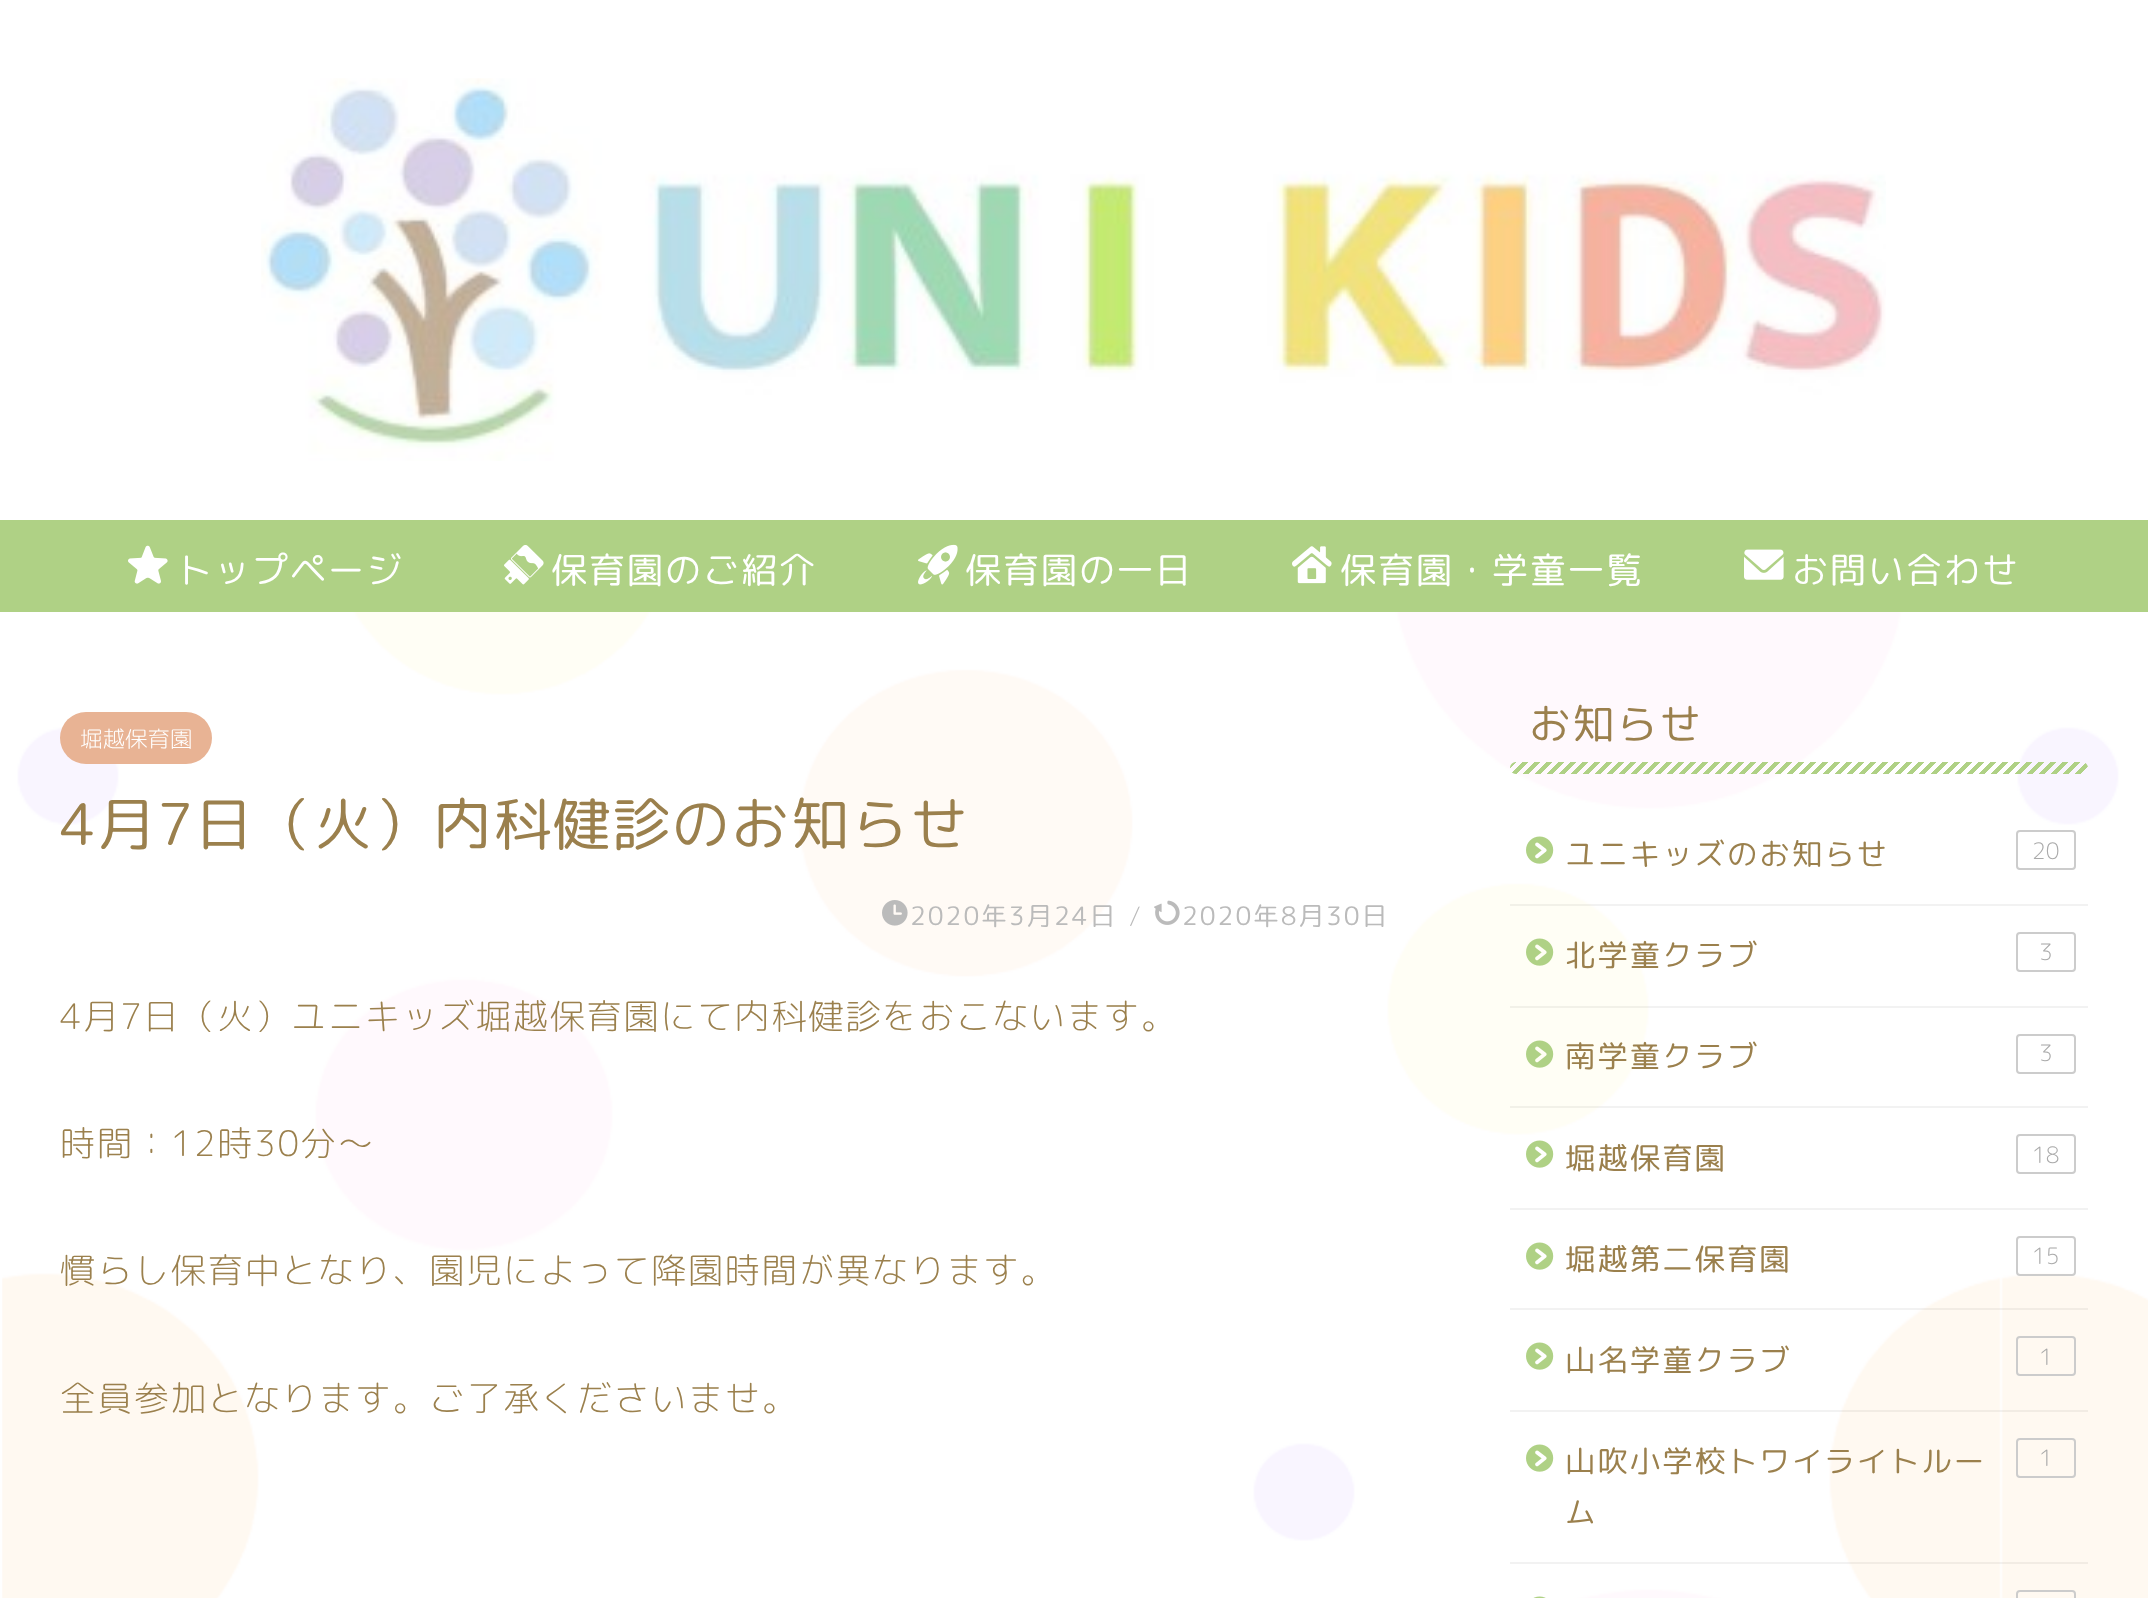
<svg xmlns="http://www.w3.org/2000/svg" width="2148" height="1598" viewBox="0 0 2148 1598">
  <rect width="100%" height="100%" fill="#ffffff"/>
  <image x="2" y="612" width="2146" height="986" href="img1.png"/>
  <image x="261" y="78" width="1625" height="383" href="img2.png"/>
  <rect x="0" y="520" width="2148" height="92" fill="#afd185"/>
  <image x="128" y="545" width="40" height="39" href="img3.png"/>
  <text x="176" y="583" font-family="'Rounded Mplus 1c'" font-size="36" letter-spacing="2" fill="#ffffff">トップページ</text>
  <image x="504" y="545" width="40" height="40" href="img4.png"/>
  <text x="551" y="583" font-family="'Rounded Mplus 1c'" font-size="36" letter-spacing="2" fill="#ffffff">保育園のご紹介</text>
  <image x="918" y="544" width="40" height="41" href="img5.png"/>
  <text x="965" y="583" font-family="'Rounded Mplus 1c'" font-size="36" letter-spacing="2" fill="#ffffff">保育園の一日</text>
  <image x="1292" y="546" width="40" height="38" href="img6.png"/>
  <text x="1340" y="583" font-family="'Rounded Mplus 1c'" font-size="36" letter-spacing="2" fill="#ffffff">保育園・学童一覧</text>
  <image x="1744" y="549" width="40" height="31" href="img7.png"/>
  <text x="1792" y="583" font-family="'Rounded Mplus 1c'" font-size="36" letter-spacing="2" fill="#ffffff">お問い合わせ</text>
  <rect x="60" y="712" width="152" height="52" rx="26" fill="#e8b394"/>
  <text x="80" y="747" font-family="'Rounded Mplus 1c'" font-size="22.5" font-weight="300" fill="#ffffff">堀越保育園</text>
  <text x="60" y="845" font-family="'Rounded Mplus 1c'" font-size="57.6" letter-spacing="2" fill="#9b804d">4月7日（火）内科健診のお知らせ</text>
  <image x="882" y="900" width="26" height="26" href="img8.png"/>
  <text x="910" y="925" font-family="'Rounded Mplus 1c'" font-size="25.5" letter-spacing="2" fill="#bbbbbb">2020年3月24日</text>
  <text x="1129" y="925" font-family="'Rounded Mplus 1c'" font-size="25.5" font-weight="300" letter-spacing="2" fill="#bbbbbb">/</text>
  <image x="1154" y="900" width="26" height="25" href="img9.png"/>
  <text x="1182" y="925" font-family="'Rounded Mplus 1c'" font-size="25.5" letter-spacing="2" fill="#bbbbbb">2020年8月30日</text>
  <text x="60" y="1029" font-family="'Rounded Mplus 1c'" font-size="35.2" font-weight="300" letter-spacing="1.75" fill="#9b804d">4月7日（火）ユニキッズ堀越保育園にて内科健診をおこないます。</text>
  <text x="60" y="1156" font-family="'Rounded Mplus 1c'" font-size="35.2" font-weight="300" letter-spacing="1.75" fill="#9b804d">時間：12時30分～</text>
  <text x="60" y="1283" font-family="'Rounded Mplus 1c'" font-size="35.2" font-weight="300" letter-spacing="1.75" fill="#9b804d">慣らし保育中となり、園児によって降園時間が異なります。</text>
  <text x="60" y="1411" font-family="'Rounded Mplus 1c'" font-size="35.2" font-weight="300" letter-spacing="1.75" fill="#9b804d">全員参加となります。ご了承くださいませ。</text>
  <text x="1529" y="739" font-family="'Rounded Mplus 1c'" font-size="41.5" letter-spacing="2" fill="#9b804d">お知らせ</text>
  <image x="1510" y="762" width="578" height="12" href="img10.png"/>
  <rect x="1510" y="904" width="578" height="2" fill="#000000" fill-opacity="0.05"/>
  <image x="1526" y="836" width="28" height="28" href="img11.png"/>
  <text x="1565" y="865" font-family="'Rounded Mplus 1c'" font-size="30.4" letter-spacing="2" fill="#9b804d">ユニキッズのお知らせ</text>
  <rect x="2017" y="831" width="58" height="38" rx="3" fill="none" stroke="#cccccc" stroke-width="2"/>
  <text x="2032" y="859" font-family="'Rounded Mplus 1c'" font-size="22.5" font-weight="300" fill="#aaaaaa">20</text>
  <rect x="1510" y="1006" width="578" height="2" fill="#000000" fill-opacity="0.05"/>
  <image x="1526" y="938" width="28" height="28" href="img12.png"/>
  <text x="1565" y="966" font-family="'Rounded Mplus 1c'" font-size="30.4" letter-spacing="2" fill="#9b804d">北学童クラブ</text>
  <rect x="2017" y="933" width="58" height="38" rx="3" fill="none" stroke="#cccccc" stroke-width="2"/>
  <text x="2039" y="960" font-family="'Rounded Mplus 1c'" font-size="22.5" font-weight="300" fill="#aaaaaa">3</text>
  <rect x="1510" y="1106" width="578" height="2" fill="#000000" fill-opacity="0.05"/>
  <image x="1526" y="1040" width="28" height="28" href="img12.png"/>
  <text x="1565" y="1067" font-family="'Rounded Mplus 1c'" font-size="30.4" letter-spacing="2" fill="#9b804d">南学童クラブ</text>
  <rect x="2017" y="1035" width="58" height="38" rx="3" fill="none" stroke="#cccccc" stroke-width="2"/>
  <text x="2039" y="1061" font-family="'Rounded Mplus 1c'" font-size="22.5" font-weight="300" fill="#aaaaaa">3</text>
  <rect x="1510" y="1208" width="578" height="2" fill="#f2f2f2"/>
  <image x="1526" y="1140" width="28" height="28" href="img11.png"/>
  <text x="1565" y="1169" font-family="'Rounded Mplus 1c'" font-size="30.4" letter-spacing="2" fill="#9b804d">堀越保育園</text>
  <rect x="2017" y="1135" width="58" height="38" rx="3" fill="none" stroke="#cccccc" stroke-width="2"/>
  <text x="2032" y="1163" font-family="'Rounded Mplus 1c'" font-size="22.5" font-weight="300" fill="#aaaaaa">18</text>
  <rect x="1510" y="1308" width="578" height="2" fill="#000000" fill-opacity="0.05"/>
  <image x="1526" y="1242" width="28" height="28" href="img11.png"/>
  <text x="1565" y="1270" font-family="'Rounded Mplus 1c'" font-size="30.4" letter-spacing="2" fill="#9b804d">堀越第二保育園</text>
  <rect x="2017" y="1237" width="58" height="38" rx="3" fill="none" stroke="#cccccc" stroke-width="2"/>
  <text x="2032" y="1264" font-family="'Rounded Mplus 1c'" font-size="22.5" font-weight="300" fill="#aaaaaa">15</text>
  <rect x="1510" y="1410" width="578" height="2" fill="#000000" fill-opacity="0.05"/>
  <image x="1526" y="1342" width="28" height="28" href="img11.png"/>
  <text x="1565" y="1371" font-family="'Rounded Mplus 1c'" font-size="30.4" letter-spacing="2" fill="#9b804d">山名学童クラブ</text>
  <rect x="2017" y="1337" width="58" height="38" rx="3" fill="none" stroke="#cccccc" stroke-width="2"/>
  <text x="2039" y="1365" font-family="'Rounded Mplus 1c'" font-size="22.5" font-weight="300" fill="#aaaaaa">1</text>
  <rect x="1510" y="1562" width="578" height="2" fill="#000000" fill-opacity="0.05"/>
  <image x="1526" y="1444" width="28" height="28" href="img11.png"/>
  <text x="1565" y="1472" font-family="'Rounded Mplus 1c'" font-size="30.4" letter-spacing="2" fill="#9b804d">山吹小学校トワイライトルー</text>
  <rect x="2017" y="1439" width="58" height="38" rx="3" fill="none" stroke="#cccccc" stroke-width="2"/>
  <text x="2039" y="1466" font-family="'Rounded Mplus 1c'" font-size="22.5" font-weight="300" fill="#aaaaaa">1</text>
  <text x="1565" y="1523" font-family="'Rounded Mplus 1c'" font-size="30.4" letter-spacing="2" fill="#9b804d">ム</text>
  <image x="1533" y="1596" width="13" height="2" href="img13.png"/>
  <rect x="2017" y="1591" width="58" height="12" rx="3" fill="none" stroke="#cccccc" stroke-width="2"/>
</svg>
